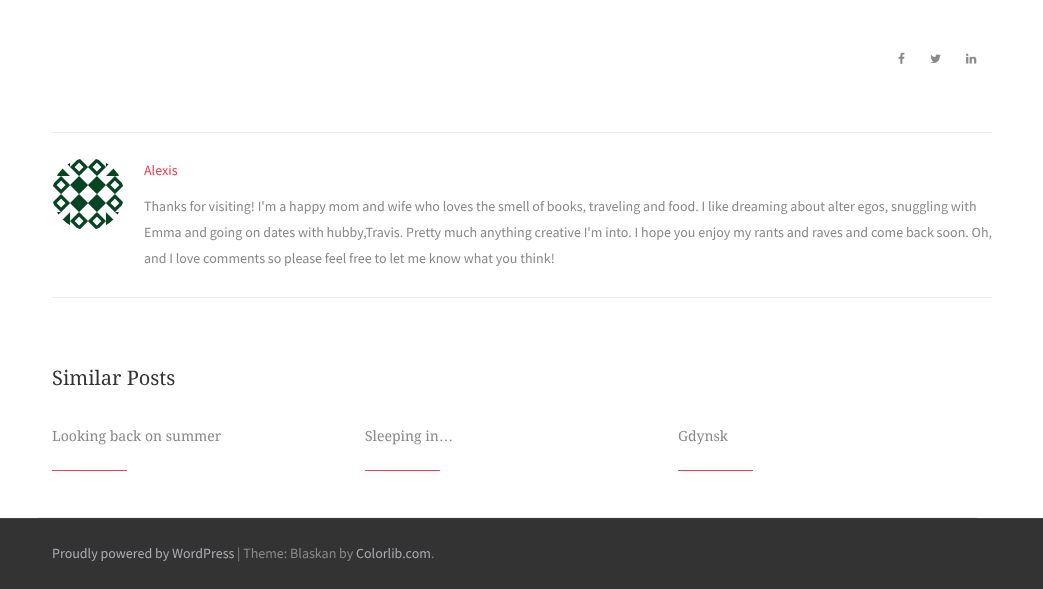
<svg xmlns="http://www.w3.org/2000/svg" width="1043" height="589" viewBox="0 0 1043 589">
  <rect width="100%" height="100%" fill="#ffffff"/>
  <image x="898" y="52" width="7" height="12" href="img1.png"/>
  <image x="930" y="54" width="11" height="9" href="img2.png"/>
  <image x="966" y="53" width="11" height="11" href="img3.png"/>
  <rect x="52" y="132" width="940" height="1" fill="#ebebeb"/>
  <rect x="52" y="297" width="940" height="1" fill="#ebebeb"/>
  <image x="53" y="159" width="70" height="70" href="img4.png"/>
  <text x="144" y="175" font-family="Source Sans Pro" font-size="14" fill="#f63c4e">Alexis</text>
  <text x="144" y="211" font-family="Source Sans Pro" font-size="14" fill="#898989">Thanks for visiting! I'm a happy mom and wife who loves the smell of books, traveling and food. I like dreaming about alter egos, snuggling with</text>
  <text x="144" y="237" font-family="Source Sans Pro" font-size="14" fill="#898989">Emma and going on dates with hubby,Travis. Pretty much anything creative I'm into. I hope you enjoy my rants and raves and come back soon. Oh,</text>
  <text x="144" y="263" font-family="Source Sans Pro" font-size="14" fill="#898989">and I love comments so please feel free to let me know what you think!</text>
  <rect x="37" y="517" width="940" height="1" fill="#ebebeb"/>
  <text x="52" y="385" font-family="Droid Serif" font-size="20" fill="#333333">Similar Posts</text>
  <text x="52" y="441" font-family="Droid Serif" font-size="14" fill="#898989">Looking back on summer</text>
  <rect x="52" y="470" width="75" height="1" fill="#f63c4e"/>
  <text x="365" y="441" font-family="Droid Serif" font-size="14" fill="#898989">Sleeping in</text>
  <text x="439" y="441" font-family="Liberation Serif" font-size="14" fill="#898989">…</text>
  <rect x="365" y="470" width="75" height="1" fill="#f63c4e"/>
  <text x="678" y="441" font-family="Droid Serif" font-size="14" fill="#898989">Gdynsk</text>
  <rect x="678" y="470" width="75" height="1" fill="#f63c4e"/>
  <rect x="0" y="519" width="1043" height="70" fill="#333333"/>
  <rect x="0" y="518" width="1043" height="1" fill="#434340"/>
  <text x="52" y="558" font-family="Source Sans Pro" font-size="14" fill="#ababb2">Proudly powered by WordPress</text>
  <text x="237" y="558" font-family="Source Sans Pro" font-size="14" fill="#898989">| Theme: Blaskan by</text>
  <text x="356" y="558" font-family="Source Sans Pro" font-size="14" fill="#ababb2">Colorlib.com</text>
  <text x="431" y="558" font-family="Source Sans Pro" font-size="14" fill="#898989">.</text>
</svg>
